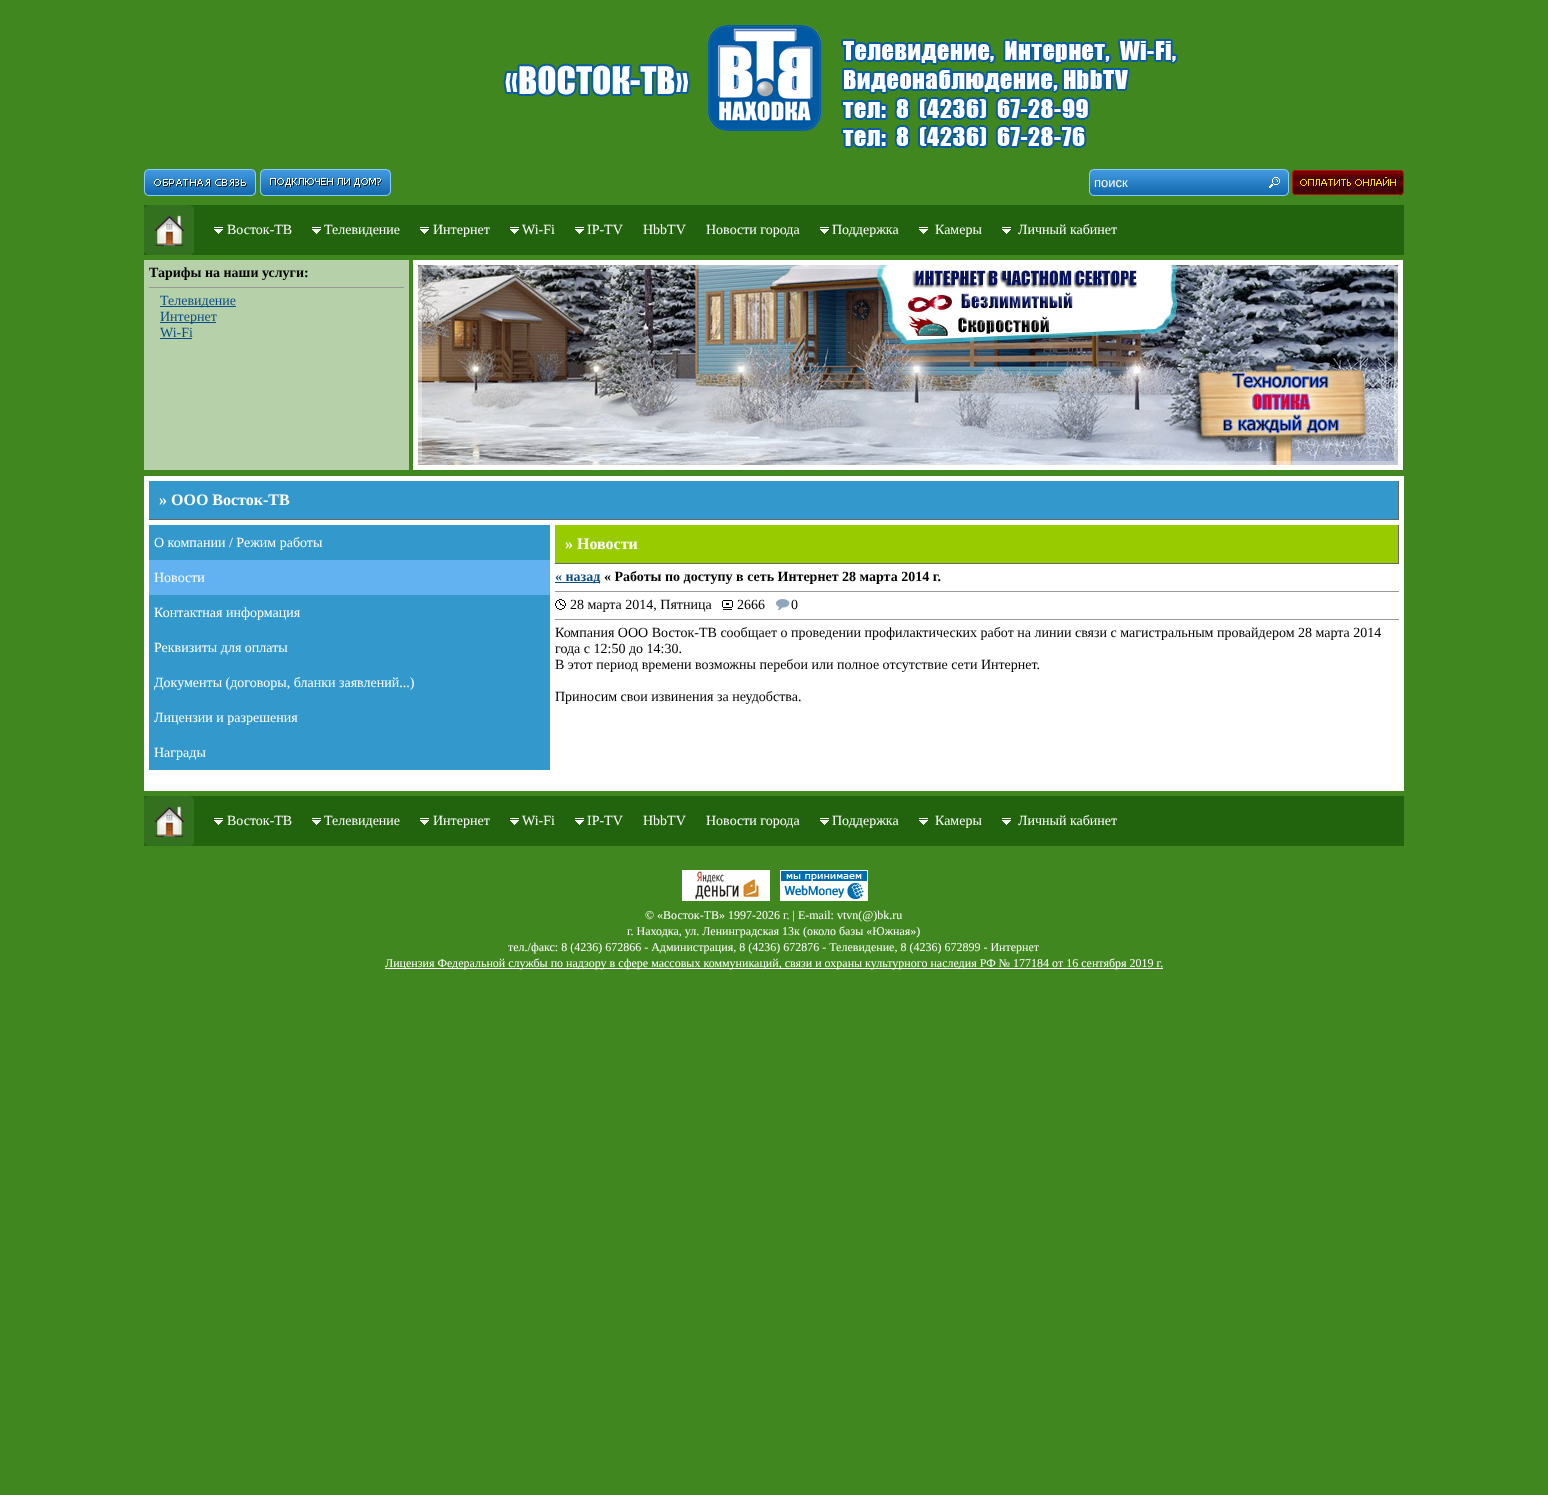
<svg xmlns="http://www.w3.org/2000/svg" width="1548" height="1495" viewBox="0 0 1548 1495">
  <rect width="100%" height="100%" fill="#40871f"/>
  <image x="503" y="25" width="675" height="123" href="img1.png"/>
  <image x="144" y="169" width="112" height="27" href="img2.png"/>
  <image x="260" y="169" width="131" height="27" href="img3.png"/>
  <image x="1089" y="169" width="200" height="27" href="img4.png"/>
  <text x="1094" y="187" font-family="Liberation Sans" font-size="13" fill="#ffffff">поиск</text>
  <image x="1292" y="170" width="112" height="25" href="img5.png"/>
  <rect x="144" y="205" width="1260" height="50" fill="#22640d"/>
  <image x="144" y="205" width="50" height="50" href="img6.png"/>
  <image x="154" y="215" width="31" height="31" href="img7.png"/>
  <image x="214" y="227" width="9" height="7" href="img8.png"/>
  <text x="227" y="234" font-family="Liberation Serif" font-size="14" fill="#ffffff">Восток-ТВ</text>
  <image x="312" y="227" width="9" height="7" href="img8.png"/>
  <text x="324" y="234" font-family="Liberation Serif" font-size="14" fill="#ffffff">Телевидение</text>
  <image x="420" y="227" width="9" height="7" href="img8.png"/>
  <text x="433" y="234" font-family="Liberation Serif" font-size="14" fill="#ffffff">Интернет</text>
  <image x="510" y="227" width="9" height="7" href="img8.png"/>
  <text x="522" y="234" font-family="Liberation Serif" font-size="14" fill="#ffffff">Wi-Fi</text>
  <image x="575" y="227" width="9" height="7" href="img8.png"/>
  <text x="587" y="234" font-family="Liberation Serif" font-size="14" fill="#ffffff">IP-TV</text>
  <text x="643" y="234" font-family="Liberation Serif" font-size="14" fill="#ffffff">HbbTV</text>
  <text x="706" y="234" font-family="Liberation Serif" font-size="14" fill="#ffffff">Новости города</text>
  <image x="820" y="227" width="9" height="7" href="img8.png"/>
  <text x="832" y="234" font-family="Liberation Serif" font-size="14" fill="#ffffff">Поддержка</text>
  <image x="919" y="227" width="9" height="7" href="img8.png"/>
  <text x="935" y="234" font-family="Liberation Serif" font-size="14" fill="#ffffff">Камеры</text>
  <image x="1002" y="227" width="9" height="7" href="img8.png"/>
  <text x="1018" y="234" font-family="Liberation Serif" font-size="14" fill="#ffffff">Личный кабинет</text>
  <rect x="144" y="260" width="265" height="210" fill="#b6d1aa"/>
  <text x="149" y="277" font-family="Liberation Serif" font-size="14" font-weight="bold" fill="#000000">Тарифы на наши услуги:</text>
  <rect x="149" y="287" width="255" height="1" fill="#999999"/>
  <rect x="160" y="306" width="76" height="1" fill="#0b4e85"/>
  <text x="160" y="305" font-family="Liberation Serif" font-size="14" fill="#0b4e85">Телевидение</text>
  <rect x="160" y="322" width="56" height="1" fill="#0b4e85"/>
  <text x="160" y="321" font-family="Liberation Serif" font-size="14" fill="#0b4e85">Интернет</text>
  <text x="160" y="337" font-family="Liberation Serif" font-size="14" fill="#0b4e85">Wi-Fi</text>
  <rect x="160" y="338" width="32" height="1" fill="#0b4e85"/>
  <rect x="413" y="260" width="990" height="210" fill="#ffffff"/>
  <image x="418" y="265" width="980" height="200" href="img9.png"/>
  <rect x="144" y="476" width="1260" height="315" fill="#ffffff"/>
  <rect x="149" y="481" width="1249" height="38" fill="#3399cc"/>
  <rect x="1398" y="481" width="1" height="39" fill="#666666"/>
  <rect x="149" y="519" width="1250" height="1" fill="#666666"/>
  <text x="159" y="505" font-family="Liberation Serif" font-size="16" font-weight="bold" fill="#ffffff">» ООО Восток-ТВ</text>
  <rect x="149" y="525" width="401" height="245" fill="#3399cc"/>
  <text x="154" y="547" font-family="Liberation Serif" font-size="14" fill="#ffffff">О компании / Режим работы</text>
  <rect x="149" y="560" width="401" height="35" fill="#62b1f1"/>
  <text x="154" y="582" font-family="Liberation Serif" font-size="14" fill="#ffffff">Новости</text>
  <text x="154" y="617" font-family="Liberation Serif" font-size="14" fill="#ffffff">Контактная информация</text>
  <text x="154" y="652" font-family="Liberation Serif" font-size="14" fill="#ffffff">Реквизиты для оплаты</text>
  <text x="154" y="687" font-family="Liberation Serif" font-size="14" fill="#ffffff">Документы (договоры, бланки заявлений...)</text>
  <text x="154" y="722" font-family="Liberation Serif" font-size="14" fill="#ffffff">Лицензии и разрешения</text>
  <text x="154" y="757" font-family="Liberation Serif" font-size="14" fill="#ffffff">Награды</text>
  <rect x="555" y="525" width="843" height="38" fill="#99cc00"/>
  <rect x="1398" y="525" width="1" height="39" fill="#666666"/>
  <rect x="555" y="563" width="844" height="1" fill="#666666"/>
  <text x="565" y="549" font-family="Liberation Serif" font-size="16" font-weight="bold" fill="#ffffff">» Новости</text>
  <rect x="555" y="582" width="45" height="1" fill="#0b4e85"/>
  <text x="555" y="581" font-family="Liberation Serif" font-size="14" font-weight="bold" fill="#0b4e85">« назад</text>
  <text x="604" y="581" font-family="Liberation Serif" font-size="14" font-weight="bold" fill="#000000">« Работы по доступу в сеть Интернет 28 марта 2014 г.</text>
  <rect x="555" y="591" width="844" height="1" fill="#999999"/>
  <image x="555" y="599" width="11" height="11" href="img10.png"/>
  <text x="570" y="609" font-family="Liberation Serif" font-size="14" fill="#000000">28 марта 2014, Пятница</text>
  <image x="722" y="600" width="11" height="10" href="img11.png"/>
  <text x="737" y="609" font-family="Liberation Serif" font-size="14" fill="#000000">2666</text>
  <image x="776" y="599" width="14" height="11" href="img12.png"/>
  <text x="791" y="609" font-family="Liberation Serif" font-size="14" fill="#000000">0</text>
  <rect x="555" y="619" width="844" height="1" fill="#999999"/>
  <text x="555" y="637" font-family="Liberation Serif" font-size="14" fill="#000000">Компания ООО Восток-ТВ сообщает о проведении профилактических работ на линии связи с магистральным провайдером 28 марта 2014</text>
  <text x="555" y="653" font-family="Liberation Serif" font-size="14" fill="#000000">года с 12:50 до 14:30.</text>
  <text x="555" y="669" font-family="Liberation Serif" font-size="14" fill="#000000">В этот период времени возможны перебои или полное отсутствие сети Интернет.</text>
  <text x="555" y="701" font-family="Liberation Serif" font-size="14" fill="#000000">Приносим свои извинения за неудобства.</text>
  <rect x="144" y="796" width="1260" height="50" fill="#22640d"/>
  <image x="144" y="796" width="50" height="50" href="img6.png"/>
  <image x="154" y="806" width="31" height="31" href="img7.png"/>
  <image x="214" y="818" width="9" height="7" href="img8.png"/>
  <text x="227" y="825" font-family="Liberation Serif" font-size="14" fill="#ffffff">Восток-ТВ</text>
  <image x="312" y="818" width="9" height="7" href="img8.png"/>
  <text x="324" y="825" font-family="Liberation Serif" font-size="14" fill="#ffffff">Телевидение</text>
  <image x="420" y="818" width="9" height="7" href="img8.png"/>
  <text x="433" y="825" font-family="Liberation Serif" font-size="14" fill="#ffffff">Интернет</text>
  <image x="510" y="818" width="9" height="7" href="img8.png"/>
  <text x="522" y="825" font-family="Liberation Serif" font-size="14" fill="#ffffff">Wi-Fi</text>
  <image x="575" y="818" width="9" height="7" href="img8.png"/>
  <text x="587" y="825" font-family="Liberation Serif" font-size="14" fill="#ffffff">IP-TV</text>
  <text x="643" y="825" font-family="Liberation Serif" font-size="14" fill="#ffffff">HbbTV</text>
  <text x="706" y="825" font-family="Liberation Serif" font-size="14" fill="#ffffff">Новости города</text>
  <image x="820" y="818" width="9" height="7" href="img8.png"/>
  <text x="832" y="825" font-family="Liberation Serif" font-size="14" fill="#ffffff">Поддержка</text>
  <image x="919" y="818" width="9" height="7" href="img8.png"/>
  <text x="935" y="825" font-family="Liberation Serif" font-size="14" fill="#ffffff">Камеры</text>
  <image x="1002" y="818" width="9" height="7" href="img8.png"/>
  <text x="1018" y="825" font-family="Liberation Serif" font-size="14" fill="#ffffff">Личный кабинет</text>
  <image x="682" y="870" width="88" height="31" href="img13.png"/>
  <image x="780" y="870" width="88" height="31" href="img14.png"/>
  <text x="645" y="919" font-family="Liberation Serif" font-size="12" fill="#ffffff">© «Восток-ТВ» 1997-2026 г. | E-mail: vtvn(@)bk.ru</text>
  <text x="627" y="935" font-family="Liberation Serif" font-size="12" fill="#ffffff">г. Находка, ул. Ленинградская 13к (около базы «Южная»)</text>
  <text x="508" y="951" font-family="Liberation Serif" font-size="12" fill="#ffffff">тел./факс: 8 (4236) 672866 - Администрация, 8 (4236) 672876 - Телевидение, 8 (4236) 672899 - Интернет</text>
  <rect x="385" y="968" width="778" height="1" fill="#ffffff"/>
  <text x="385" y="967" font-family="Liberation Serif" font-size="12" fill="#ffffff">Лицензия Федеральной службы по надзору в сфере массовых коммуникаций, связи и охраны культурного наследия РФ № 177184 от 16 сентября 2019 г.</text>
</svg>
